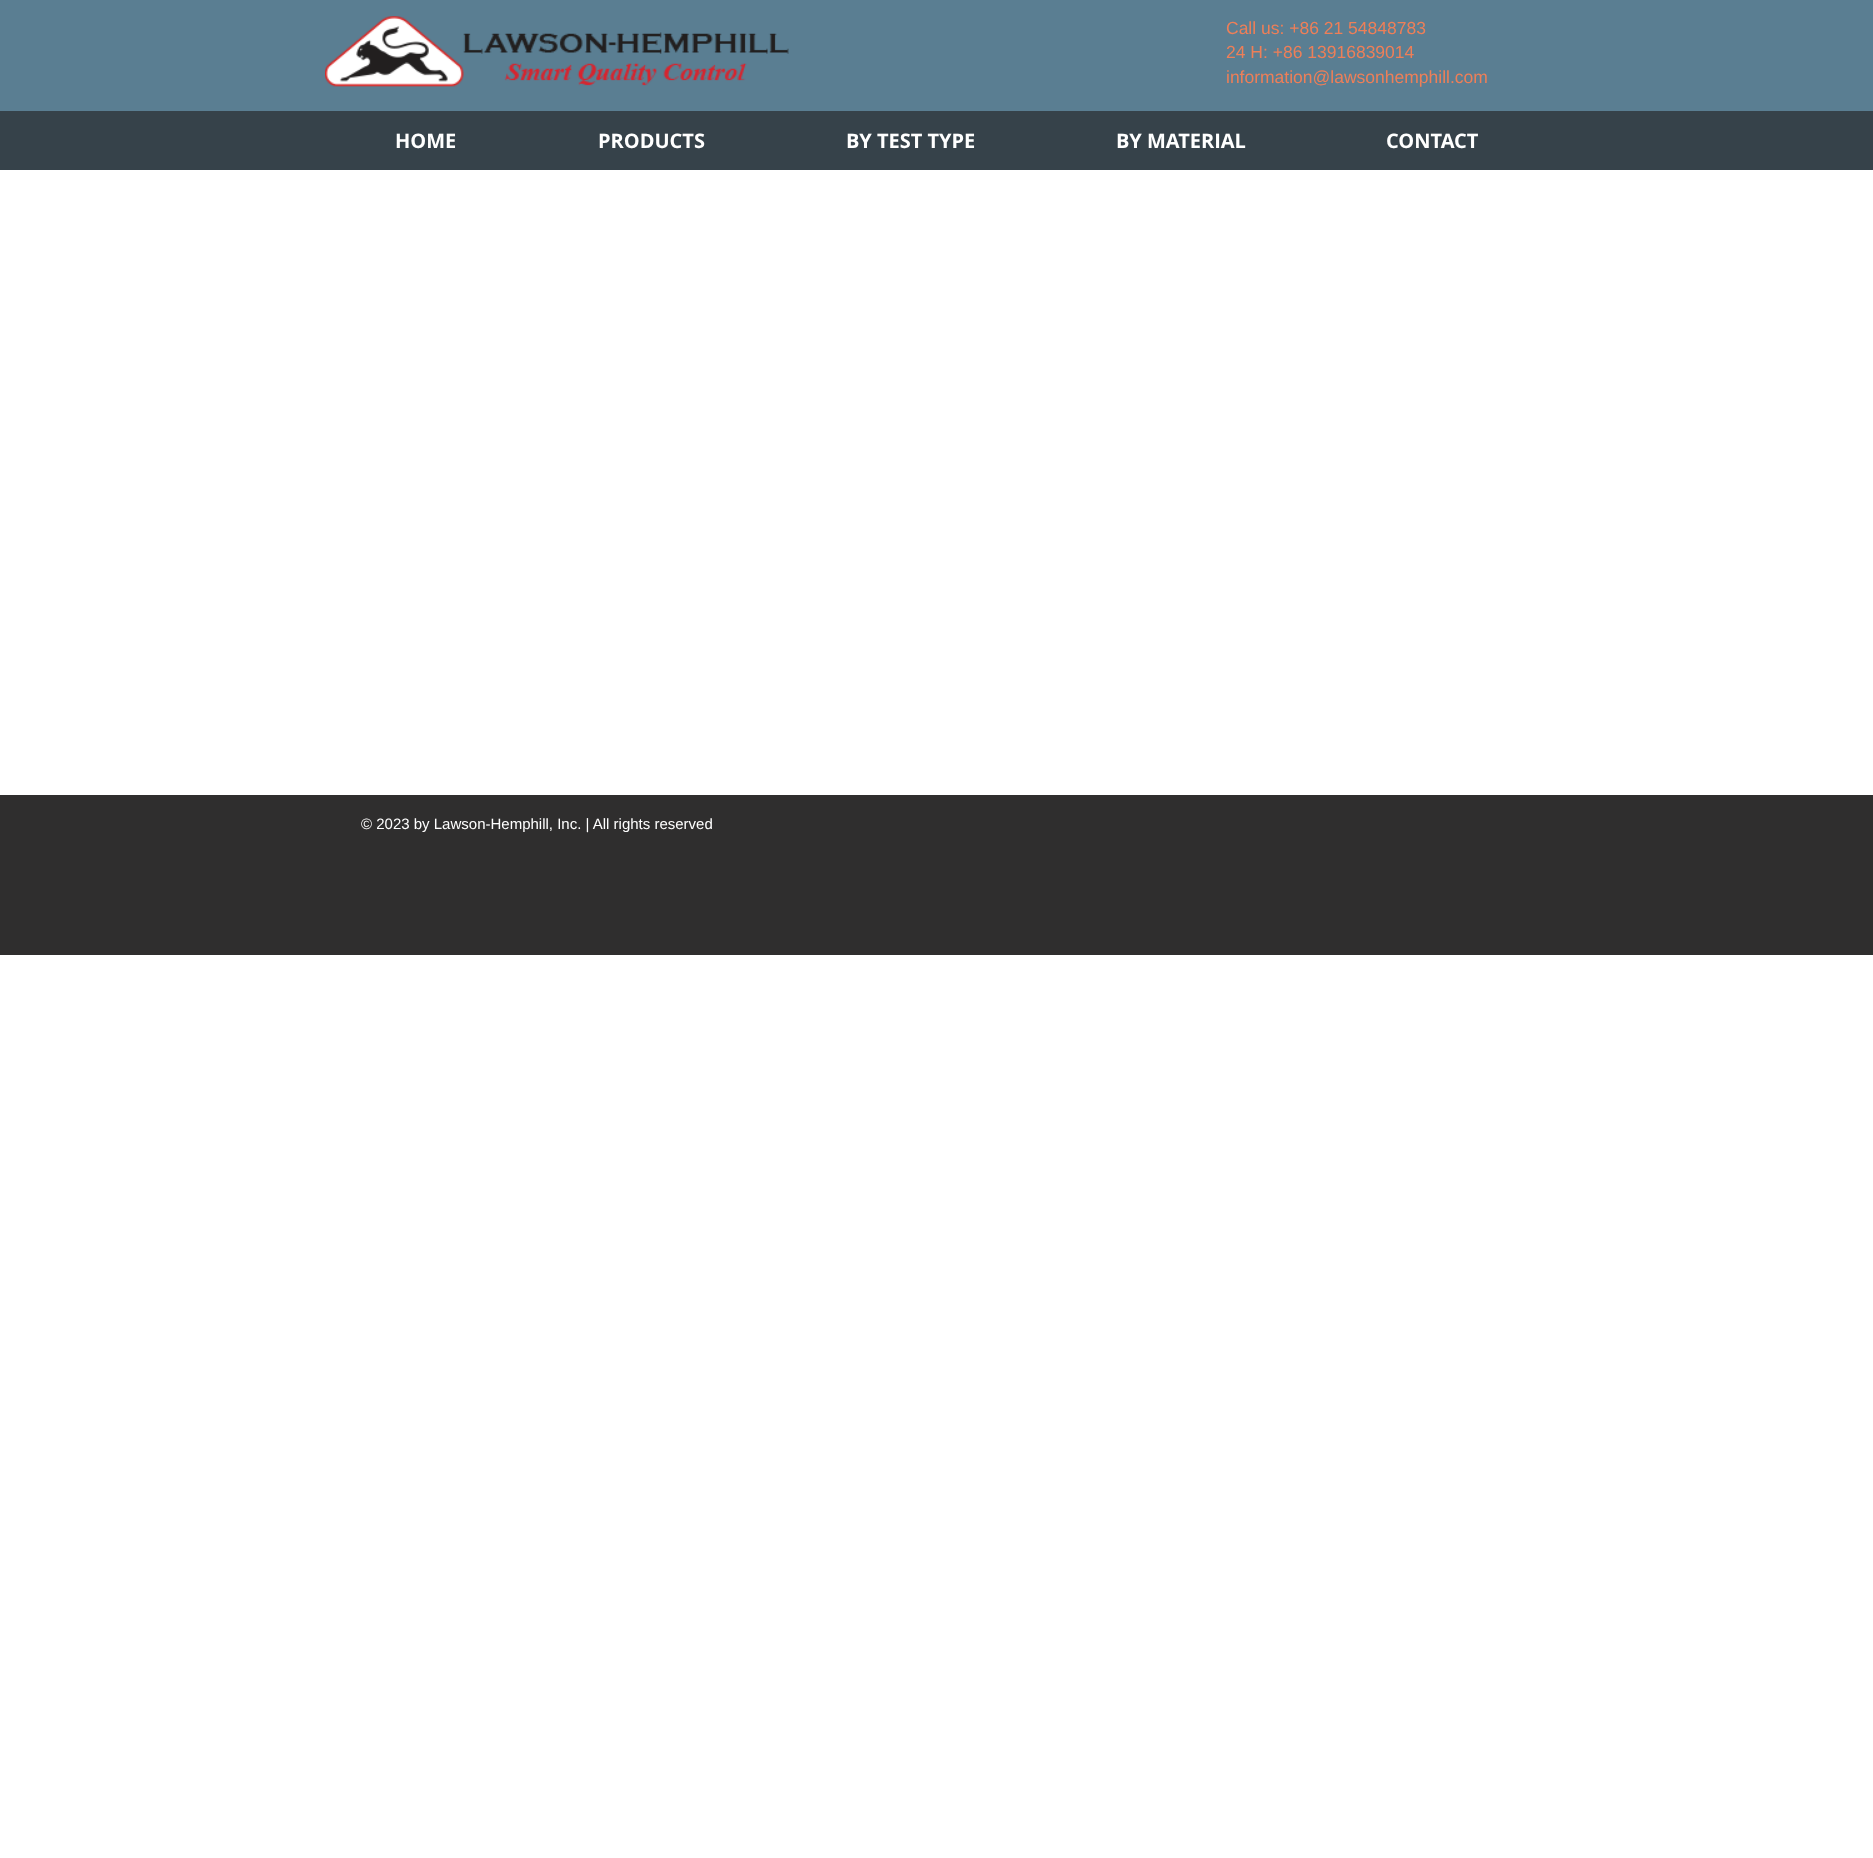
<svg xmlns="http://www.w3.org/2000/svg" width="1873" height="1858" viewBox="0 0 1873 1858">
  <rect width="100%" height="100%" fill="#ffffff"/>
  <rect x="0" y="0" width="1873" height="111" fill="#5a7e92"/>
  <image x="325" y="16" width="464" height="71" href="img1.png"/>
  <text x="1226" y="34" font-family="Liberation Sans" font-size="17.5" fill="#ee7f58">Call us: +86 21 54848783</text>
  <text x="1226" y="58" font-family="Liberation Sans" font-size="17.5" fill="#ee7f58">24 H: +86 13916839014</text>
  <text x="1226" y="83" font-family="Liberation Sans" font-size="17.5" fill="#ee7f58">information@lawsonhemphill.com</text>
  <rect x="0" y="111" width="1873" height="59" fill="#36424a"/>
  <text x="395" y="148" font-family="Open Sans" font-size="20" font-weight="bold" fill="#ffffff">HOME</text>
  <text x="598" y="148" font-family="Open Sans" font-size="20" font-weight="bold" fill="#ffffff">PRODUCTS</text>
  <text x="846" y="148" font-family="Open Sans" font-size="20" font-weight="bold" fill="#ffffff">BY TEST TYPE</text>
  <text x="1116" y="148" font-family="Open Sans" font-size="20" font-weight="bold" fill="#ffffff">BY MATERIAL</text>
  <text x="1386" y="148" font-family="Open Sans" font-size="20" font-weight="bold" fill="#ffffff">CONTACT</text>
  <rect x="0" y="795" width="1873" height="160" fill="#2f2e2e"/>
  <text x="361" y="829" font-family="Liberation Sans" font-size="15" fill="#ffffff">© 2023 by Lawson-Hemphill, Inc. | All rights reserved</text>
</svg>
